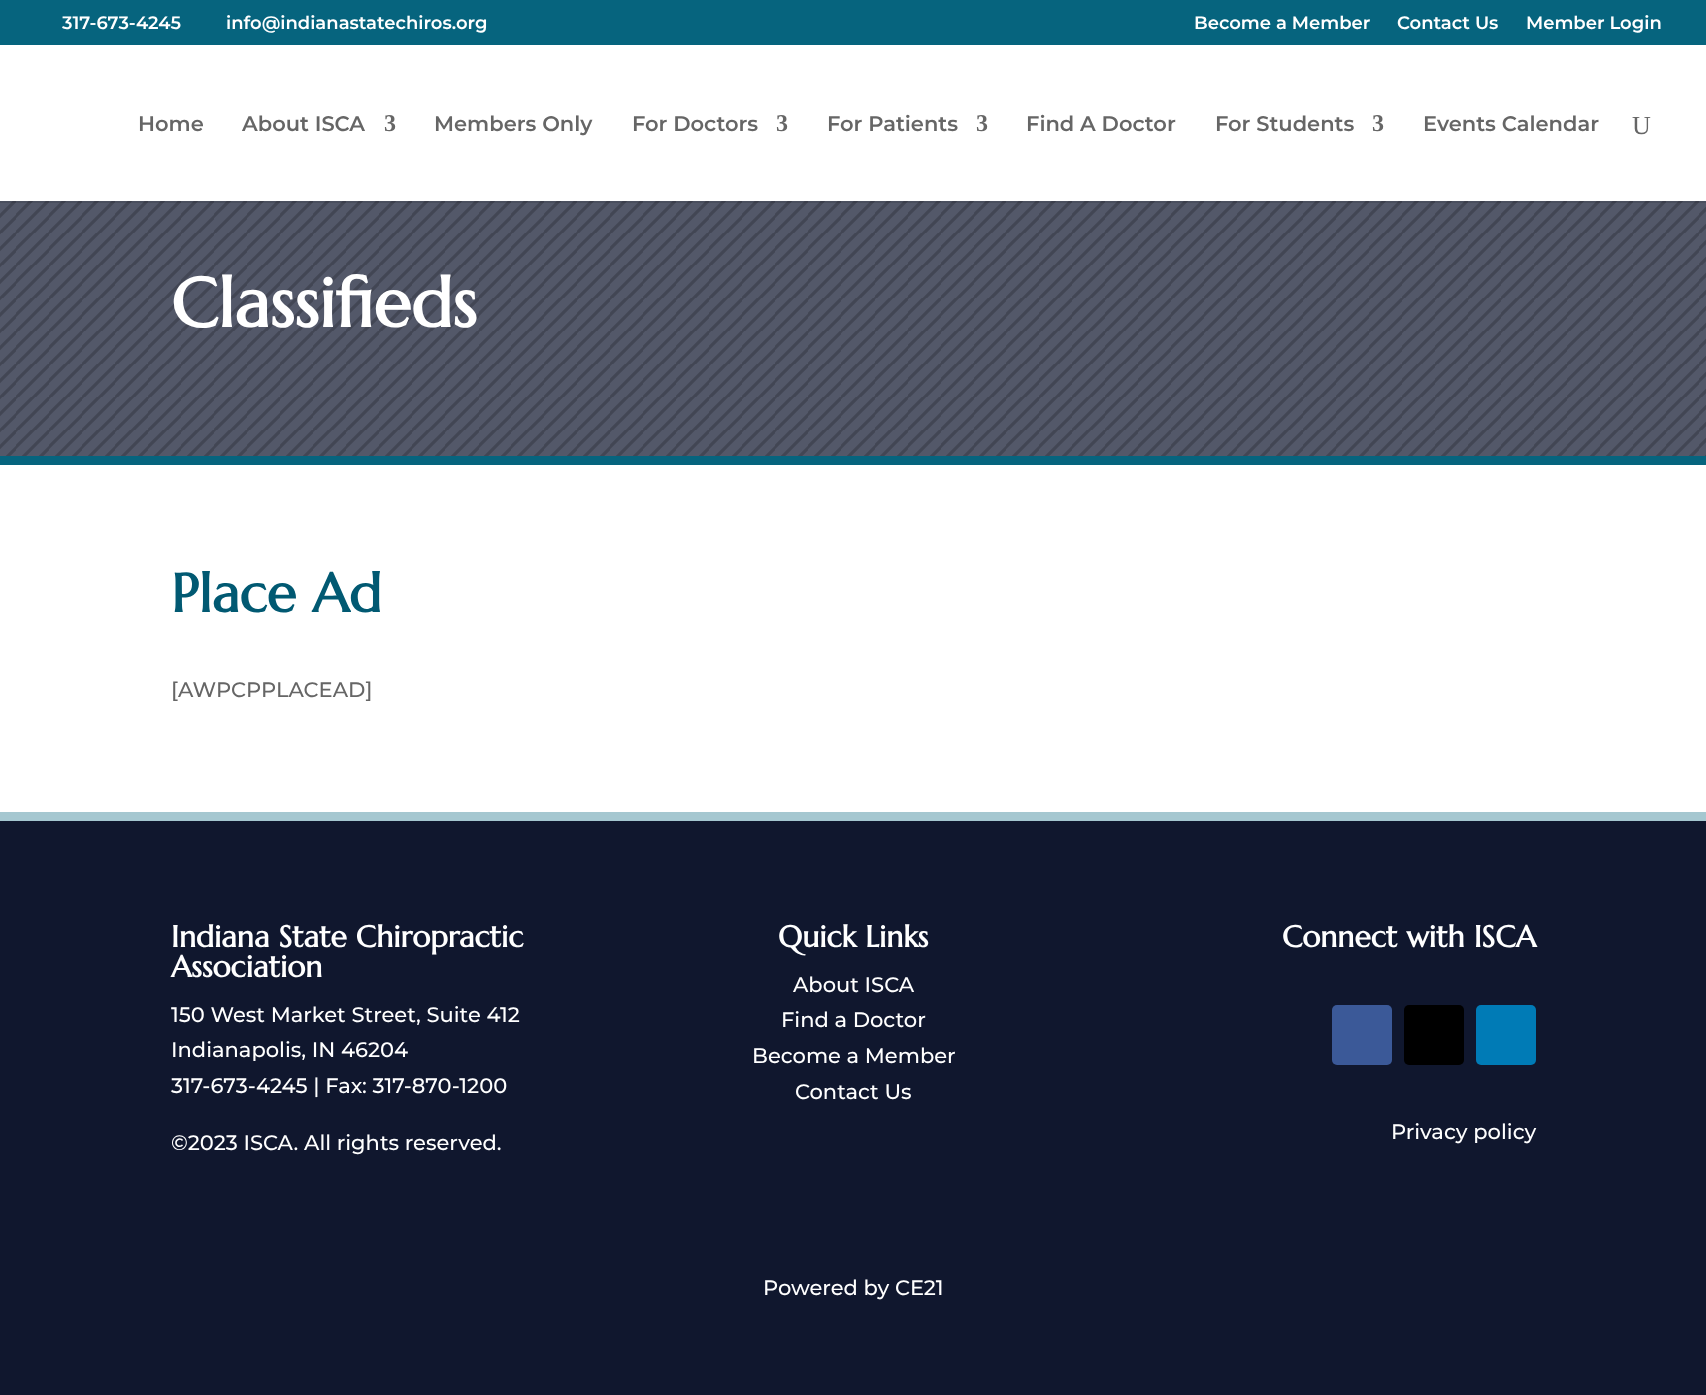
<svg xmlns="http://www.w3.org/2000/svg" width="1706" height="1395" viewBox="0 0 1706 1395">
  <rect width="100%" height="100%" fill="#ffffff"/>
  <rect x="0" y="0" width="1706" height="45" fill="#06647e"/>
  <text x="62" y="29" font-family="Montserrat" font-size="18" font-weight="600" fill="#ffffff">317-673-4245</text>
  <text x="226" y="29" font-family="Montserrat" font-size="18" font-weight="600" fill="#ffffff">info@indianastatechiros.org</text>
  <text x="1194" y="29" font-family="Montserrat" font-size="18" font-weight="600" fill="#ffffff">Become a Member</text>
  <text x="1397" y="29" font-family="Montserrat" font-size="18" font-weight="600" fill="#ffffff">Contact Us</text>
  <text x="1526" y="29" font-family="Montserrat" font-size="18" font-weight="600" fill="#ffffff">Member Login</text>
  <rect x="0" y="201" width="1706" height="255" fill="#535869"/>
  <image x="0" y="201" width="1706" height="255" href="img1.png"/>
  <rect x="0" y="201" width="1706" height="2" fill="#000000" fill-opacity="0.1"/>
  <text x="138" y="131" font-family="Montserrat" font-size="21" font-weight="600" fill="#666666">Home</text>
  <text x="242" y="131" font-family="Montserrat" font-size="21" font-weight="600" fill="#666666">About ISCA</text>
  <text x="384" y="131" font-family="Liberation Serif" font-size="24" font-weight="bold" fill="#666666">3</text>
  <text x="434" y="131" font-family="Montserrat" font-size="21" font-weight="600" fill="#666666">Members Only</text>
  <text x="632" y="131" font-family="Montserrat" font-size="21" font-weight="600" fill="#666666">For Doctors</text>
  <text x="776" y="131" font-family="Liberation Serif" font-size="24" font-weight="bold" fill="#666666">3</text>
  <text x="827" y="131" font-family="Montserrat" font-size="21" font-weight="600" fill="#666666">For Patients</text>
  <text x="976" y="131" font-family="Liberation Serif" font-size="24" font-weight="bold" fill="#666666">3</text>
  <text x="1026" y="131" font-family="Montserrat" font-size="21" font-weight="600" fill="#666666">Find A Doctor</text>
  <text x="1215" y="131" font-family="Montserrat" font-size="21" font-weight="600" fill="#666666">For Students</text>
  <text x="1372" y="131" font-family="Liberation Serif" font-size="24" font-weight="bold" fill="#666666">3</text>
  <text x="1423" y="131" font-family="Montserrat" font-size="21" font-weight="600" fill="#666666">Events Calendar</text>
  <text x="1632" y="134" font-family="Liberation Serif" font-size="26" fill="#666666">U</text>
  <rect x="0" y="456" width="1706" height="9" fill="#06647e"/>
  <text x="171" y="327" font-family="Marcellus" font-size="69" font-weight="bold" fill="#ffffff">Classifieds</text>
  <text x="171" y="612" font-family="Marcellus" font-size="54" font-weight="bold" fill="#015972">Place Ad</text>
  <text x="171" y="697" font-family="Montserrat" font-size="21" font-weight="500" fill="#666666">[AWPCPPLACEAD]</text>
  <rect x="0" y="821" width="1706" height="574" fill="#10172e"/>
  <rect x="0" y="812" width="1706" height="9" fill="#a5c7d0"/>
  <text x="171" y="947" font-family="Marcellus" font-size="30" font-weight="bold" fill="#ffffff">Indiana State Chiropractic</text>
  <text x="171" y="977" font-family="Marcellus" font-size="30" font-weight="bold" fill="#ffffff">Association</text>
  <text x="171" y="1022" font-family="Montserrat" font-size="21" font-weight="500" fill="#ffffff">150 West Market Street, Suite 412</text>
  <text x="171" y="1057" font-family="Montserrat" font-size="21" font-weight="500" fill="#ffffff">Indianapolis, IN 46204</text>
  <text x="171" y="1093" font-family="Montserrat" font-size="21" font-weight="500" fill="#ffffff">317-673-4245 | Fax: 317-870-1200</text>
  <text x="171" y="1150" font-family="Montserrat" font-size="21" font-weight="500" fill="#ffffff">©2023 ISCA. All rights reserved.</text>
  <text x="778" y="947" font-family="Marcellus" font-size="30" font-weight="bold" fill="#ffffff">Quick Links</text>
  <text x="793" y="992" font-family="Montserrat" font-size="21" font-weight="500" fill="#ffffff">About ISCA</text>
  <text x="781" y="1027" font-family="Montserrat" font-size="21" font-weight="500" fill="#ffffff">Find a Doctor</text>
  <text x="752" y="1063" font-family="Montserrat" font-size="21" font-weight="500" fill="#ffffff">Become a Member</text>
  <text x="795" y="1099" font-family="Montserrat" font-size="21" font-weight="500" fill="#ffffff">Contact Us</text>
  <text x="1282" y="947" font-family="Marcellus" font-size="30" font-weight="bold" fill="#ffffff">Connect with ISCA</text>
  <rect x="1332" y="1005" width="60" height="60" rx="5" fill="#3b5998"/>
  <rect x="1404" y="1005" width="60" height="60" rx="5" fill="#000000"/>
  <rect x="1476" y="1005" width="60" height="60" rx="5" fill="#007bb6"/>
  <text x="1391" y="1139" font-family="Montserrat" font-size="21" font-weight="500" fill="#ffffff">Privacy policy</text>
  <text x="763" y="1295" font-family="Montserrat" font-size="21" font-weight="500" fill="#ffffff">Powered by CE21</text>
</svg>
